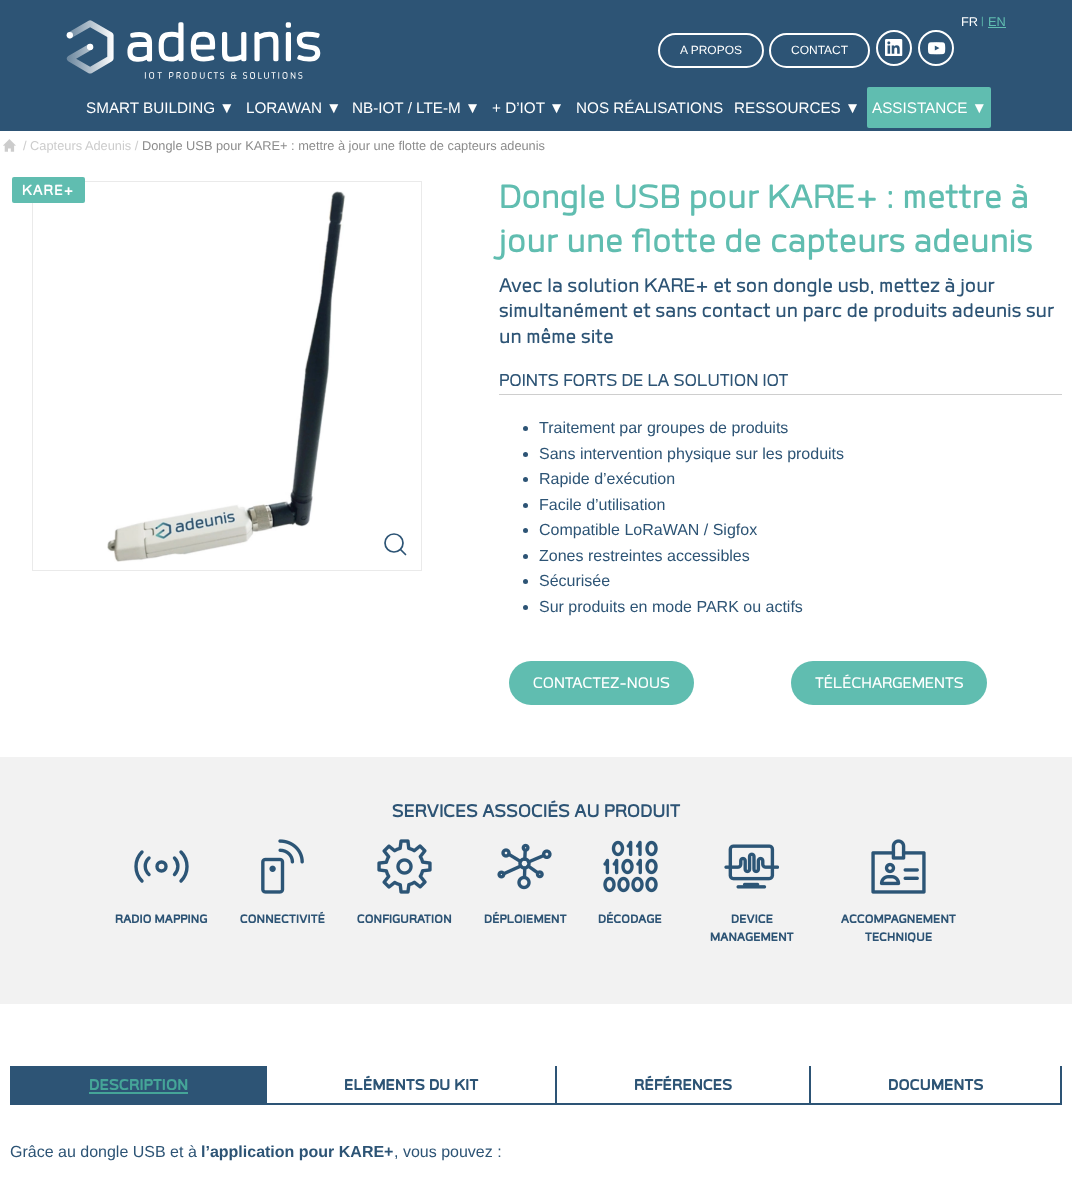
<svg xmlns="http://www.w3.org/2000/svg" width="1072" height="1202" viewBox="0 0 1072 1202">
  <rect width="100%" height="100%" fill="#ffffff"/>
  <rect x="0" y="0" width="1072" height="131" fill="#2d5475"/>
  <image x="66" y="20" width="255" height="59" href="img1.png"/>
  <text x="961" y="26" font-family="Liberation Sans" font-size="12.8" fill="#ffffff">FR</text>
  <text x="981" y="24" font-family="Liberation Sans" font-size="10" fill="#60bdb0">|</text>
  <text x="988" y="26" font-family="Liberation Sans" font-size="12.8" fill="#60bdb0">EN</text>
  <rect x="988" y="27" width="18" height="1" fill="#60bdb0"/>
  <rect x="659" y="34" width="104" height="33" rx="16.5" fill="none" stroke="#ffffff" stroke-width="2"/>
  <text x="680" y="54" font-family="Liberation Sans" font-size="12" fill="#ffffff">A PROPOS</text>
  <rect x="770" y="34" width="99" height="33" rx="16.5" fill="none" stroke="#ffffff" stroke-width="2"/>
  <text x="791" y="54" font-family="Liberation Sans" font-size="12" fill="#ffffff">CONTACT</text>
  <circle cx="894" cy="48" r="17" fill="none" stroke="#ffffff" stroke-width="2"/>
  <image x="885" y="39" width="18" height="17" href="img2.png"/>
  <circle cx="936" cy="48" r="17" fill="none" stroke="#ffffff" stroke-width="2"/>
  <image x="927" y="42" width="19" height="13" href="img3.png"/>
  <text x="86" y="113" font-family="Liberation Sans" font-size="15.25" fill="#ffffff">SMART BUILDING ▼</text>
  <text x="246" y="113" font-family="Liberation Sans" font-size="15.25" fill="#ffffff">LORAWAN ▼</text>
  <text x="352" y="113" font-family="Liberation Sans" font-size="15.25" fill="#ffffff">NB-IOT / LTE-M ▼</text>
  <text x="492" y="113" font-family="Liberation Sans" font-size="15.25" fill="#ffffff">+ D’IOT ▼</text>
  <text x="576" y="113" font-family="Liberation Sans" font-size="15.25" fill="#ffffff">NOS RÉALISATIONS</text>
  <text x="734" y="113" font-family="Liberation Sans" font-size="15.25" fill="#ffffff">RESSOURCES ▼</text>
  <rect x="867" y="87" width="124" height="41" rx="2" fill="#60bdb0"/>
  <text x="872" y="113" font-family="Liberation Sans" font-size="15.25" fill="#ffffff">ASSISTANCE ▼</text>
  <image x="3" y="139" width="13" height="13" href="img4.png"/>
  <text x="23" y="150" font-family="Liberation Sans" font-size="12.8" fill="#cccccc">/ Capteurs Adeunis /</text>
  <text x="142" y="150" font-family="Liberation Sans" font-size="12.8" fill="#8c8c8c">Dongle USB pour KARE+ : mettre à jour une flotte de capteurs adeunis</text>
  <rect x="32.5" y="181.5" width="389" height="389" fill="none" stroke="#eaeaea"/>
  <image x="107" y="191" width="239" height="371" href="img5.png"/>
  <circle cx="394" cy="543" r="9" fill="none" stroke="#2d5475" stroke-width="1.7"/>
  <path d="M400.5 549.5L405.5 554.5" fill="none" stroke="#2d5475" stroke-width="1.7" stroke-linecap="round" stroke-linejoin="round"/>
  <rect x="12" y="177" width="73" height="26" rx="2" fill="#60bdb0"/>
  <text x="22" y="195" font-family="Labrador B" font-size="19" font-weight="bold" letter-spacing="1" fill="#ffffff">KARE+</text>
  <text x="499" y="208" font-family="Labrador B" font-size="44" font-weight="500" fill="#60bdb0">Dongle USB pour KARE+ : mettre à</text>
  <text x="499" y="252" font-family="Labrador B" font-size="44" font-weight="500" fill="#60bdb0">jour une flotte de capteurs adeunis</text>
  <text x="499" y="292" font-family="Labrador B" font-size="25.6" font-weight="500" fill="#2d5475">Avec la solution KARE+ et son dongle usb, mettez à jour</text>
  <text x="499" y="317" font-family="Labrador B" font-size="25.6" font-weight="500" fill="#2d5475">simultanément et sans contact un parc de produits adeunis sur</text>
  <text x="499" y="343" font-family="Labrador B" font-size="25.6" font-weight="500" fill="#2d5475">un même site</text>
  <rect x="499" y="394" width="563" height="1" fill="#cecece"/>
  <text x="499" y="386" font-family="Labrador B" font-size="22.4" font-weight="500" fill="#2d5475">POINTS FORTS DE LA SOLUTION IOT</text>
  <circle cx="525.5" cy="428.5" r="2.5" fill="#2d5475"/>
  <text x="539" y="433" font-family="Liberation Sans" font-size="16" fill="#2d5475">Traitement par groupes de produits</text>
  <circle cx="525.5" cy="454.5" r="2.5" fill="#2d5475"/>
  <text x="539" y="459" font-family="Liberation Sans" font-size="16" fill="#2d5475">Sans intervention physique sur les produits</text>
  <circle cx="525.5" cy="479.5" r="2.5" fill="#2d5475"/>
  <text x="539" y="484" font-family="Liberation Sans" font-size="16" fill="#2d5475">Rapide d’exécution</text>
  <circle cx="525.5" cy="505.5" r="2.5" fill="#2d5475"/>
  <text x="539" y="510" font-family="Liberation Sans" font-size="16" fill="#2d5475">Facile d’utilisation</text>
  <circle cx="525.5" cy="530.5" r="2.5" fill="#2d5475"/>
  <text x="539" y="535" font-family="Liberation Sans" font-size="16" fill="#2d5475">Compatible LoRaWAN / Sigfox</text>
  <circle cx="525.5" cy="556.5" r="2.5" fill="#2d5475"/>
  <text x="539" y="561" font-family="Liberation Sans" font-size="16" fill="#2d5475">Zones restreintes accessibles</text>
  <circle cx="525.5" cy="581.5" r="2.5" fill="#2d5475"/>
  <text x="539" y="586" font-family="Liberation Sans" font-size="16" fill="#2d5475">Sécurisée</text>
  <circle cx="525.5" cy="607.5" r="2.5" fill="#2d5475"/>
  <text x="539" y="612" font-family="Liberation Sans" font-size="16" fill="#2d5475">Sur produits en mode PARK ou actifs</text>
  <rect x="509" y="661" width="185" height="44" rx="22" fill="#60bdb0"/>
  <text x="533" y="688" font-family="Labrador B" font-size="20" font-weight="500" fill="#ffffff">CONTACTEZ-NOUS</text>
  <rect x="791" y="661" width="196" height="44" rx="22" fill="#60bdb0"/>
  <text x="815" y="688" font-family="Labrador B" font-size="20" font-weight="500" fill="#ffffff">TÉLÉCHARGEMENTS</text>
  <rect x="0" y="757" width="1072" height="247" fill="#f2f2f2"/>
  <text x="392" y="817" font-family="Labrador B" font-size="24" font-weight="bold" fill="#2d5475">SERVICES ASSOCIÉS AU PRODUIT</text>
  <path d="M174.5 874.5C179 870 179 862.5 174.5 858M181 881C189 873 189 860 181 852M149 874.5C144 870 144 862.5 149 858M142 881C134 873 134 860 142 852" fill="none" stroke="#2c5576" stroke-width="3.4" stroke-linecap="round" stroke-linejoin="round"/>
  <circle cx="161.5" cy="866.5" r="4.5" fill="none" stroke="#2c5576" stroke-width="3.4"/>
  <text x="115" y="923" font-family="Labrador B" font-size="16" font-weight="800" fill="#2d5475">RADIO MAPPING</text>
  <image x="261" y="839" width="43" height="55" href="img6.png"/>
  <text x="240" y="923" font-family="Labrador B" font-size="16" font-weight="800" fill="#2d5475">CONNECTIVITÉ</text>
  <image x="377" y="839" width="55" height="55" href="img7.png"/>
  <text x="357" y="923" font-family="Labrador B" font-size="16" font-weight="800" fill="#2d5475">CONFIGURATION</text>
  <image x="497" y="843" width="55" height="47" href="img8.png"/>
  <text x="484" y="923" font-family="Labrador B" font-size="16" font-weight="800" fill="#2d5475">DÉPLOIEMENT</text>
  <image x="603" y="840" width="55" height="53" href="img9.png"/>
  <text x="598" y="923" font-family="Labrador B" font-size="16" font-weight="800" fill="#2d5475">DÉCODAGE</text>
  <image x="724" y="844" width="55" height="45" href="img10.png"/>
  <text x="731" y="923" font-family="Labrador B" font-size="16" font-weight="800" fill="#2d5475">DEVICE</text>
  <text x="710" y="941" font-family="Labrador B" font-size="16" font-weight="800" fill="#2d5475">MANAGEMENT</text>
  <image x="871" y="839" width="55" height="55" href="img11.png"/>
  <text x="841" y="923" font-family="Labrador B" font-size="16" font-weight="800" fill="#2d5475">ACCOMPAGNEMENT</text>
  <text x="865" y="941" font-family="Labrador B" font-size="16" font-weight="800" fill="#2d5475">TECHNIQUE</text>
  <rect x="10" y="1066" width="257" height="39" fill="#2d5475"/>
  <text x="89" y="1090" font-family="Labrador B" font-size="20.5" font-weight="800" fill="#45a598">DESCRIPTION</text>
  <rect x="89" y="1092" width="99" height="2" fill="#45a598"/>
  <rect x="555" y="1066" width="2" height="39" fill="#2d5475"/>
  <rect x="267" y="1103" width="290" height="2" fill="#2d5475"/>
  <text x="344" y="1090" font-family="Labrador B" font-size="20.5" font-weight="800" fill="#2d5475">ELÉMENTS DU KIT</text>
  <rect x="809" y="1066" width="2" height="39" fill="#2d5475"/>
  <rect x="557" y="1103" width="254" height="2" fill="#2d5475"/>
  <text x="634" y="1090" font-family="Labrador B" font-size="20.5" font-weight="800" fill="#2d5475">RÉFÉRENCES</text>
  <rect x="1060" y="1066" width="2" height="39" fill="#2d5475"/>
  <rect x="811" y="1103" width="251" height="2" fill="#2d5475"/>
  <text x="888" y="1090" font-family="Labrador B" font-size="20.5" font-weight="800" fill="#2d5475">DOCUMENTS</text>
  <text x="10" y="1157" font-family="Liberation Sans" font-size="16" fill="#2d5475">Grâce au dongle USB et à</text>
  <text x="201" y="1157" font-family="Liberation Sans" font-size="16" font-weight="bold" fill="#2d5475">l’application pour KARE+</text>
  <text x="394" y="1157" font-family="Liberation Sans" font-size="16" fill="#2d5475">, vous pouvez :</text>
</svg>
